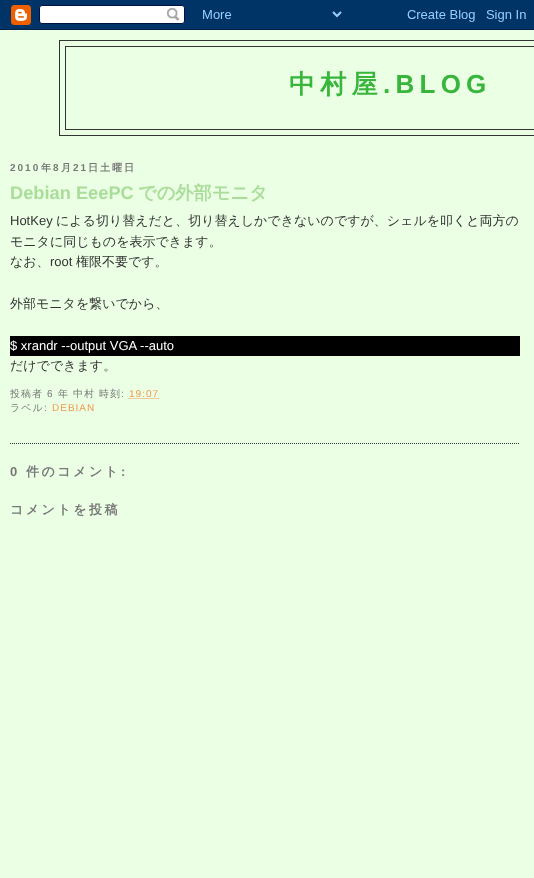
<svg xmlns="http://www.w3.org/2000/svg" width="534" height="878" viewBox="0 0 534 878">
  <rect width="100%" height="100%" fill="#ebffe5"/>
  <image x="0" y="0" width="534" height="30" href="img1.png"/>
  <rect x="59.5" y="40.5" width="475" height="95" fill="none" stroke="#333333"/>
  <rect x="65.5" y="46.5" width="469" height="83" fill="none" stroke="#333333"/>
  <text x="289" y="93" font-family="WenQuanYi Zen Hei" font-size="26" font-weight="bold" letter-spacing="5.25" fill="#38b63c">中村屋</text>
  <text x="383" y="93" font-family="Liberation Sans" font-size="26" font-weight="bold" letter-spacing="5.25" fill="#38b63c">.BLOG</text>
  <text x="10" y="171" font-family="Liberation Sans" font-size="10" font-weight="bold" letter-spacing="2" fill="#777777">2010</text>
  <text x="41" y="171" font-family="WenQuanYi Zen Hei" font-size="10" font-weight="bold" letter-spacing="2" fill="#777777">年</text>
  <text x="53" y="171" font-family="Liberation Sans" font-size="10" font-weight="bold" letter-spacing="2" fill="#777777">8</text>
  <text x="61" y="171" font-family="WenQuanYi Zen Hei" font-size="10" font-weight="bold" letter-spacing="2" fill="#777777">月</text>
  <text x="73" y="171" font-family="Liberation Sans" font-size="10" font-weight="bold" letter-spacing="2" fill="#777777">21</text>
  <text x="88" y="171" font-family="WenQuanYi Zen Hei" font-size="10" font-weight="bold" letter-spacing="2" fill="#777777">日土曜日</text>
  <path d="M10 443.5H520" fill="none" stroke="#333333" stroke-dasharray="1 1"/>
  <text x="10" y="199" font-family="Liberation Sans" font-size="18.25" font-weight="bold" fill="#aadd99">Debian EeePC</text>
  <text x="138" y="199" font-family="WenQuanYi Zen Hei" font-size="18.25" font-weight="bold" fill="#aadd99">での外部モニタ</text>
  <text x="10" y="225" font-family="Liberation Sans" font-size="13" fill="#333333">HotKey</text>
  <text x="56" y="225" font-family="WenQuanYi Zen Hei" font-size="13" font-weight="500" fill="#333333">による切り替えだと、切り替えしかできないのですが、シェルを叩くと両方の</text>
  <text x="10" y="246" font-family="WenQuanYi Zen Hei" font-size="13" font-weight="500" fill="#333333">モニタに同じものを表示できます。</text>
  <text x="10" y="266" font-family="WenQuanYi Zen Hei" font-size="13" font-weight="500" fill="#333333">なお、</text>
  <text x="50" y="266" font-family="Liberation Sans" font-size="13" fill="#333333">root</text>
  <text x="76" y="266" font-family="WenQuanYi Zen Hei" font-size="13" font-weight="500" fill="#333333">権限不要です。</text>
  <text x="10" y="308" font-family="WenQuanYi Zen Hei" font-size="13" font-weight="500" fill="#333333">外部モニタを繋いでから、</text>
  <rect x="10" y="336" width="510" height="20" fill="#000000"/>
  <text x="10" y="350" font-family="Liberation Sans" font-size="13" fill="#ffffff">$ xrandr --output VGA --auto</text>
  <text x="10" y="370" font-family="WenQuanYi Zen Hei" font-size="13" font-weight="500" fill="#333333">だけでできます。</text>
  <text x="10" y="397" font-family="WenQuanYi Zen Hei" font-size="10" font-weight="500" letter-spacing="1" fill="#777777">投稿者</text>
  <text x="47" y="397" font-family="Liberation Sans" font-size="10" letter-spacing="1" fill="#777777">6</text>
  <text x="58" y="397" font-family="WenQuanYi Zen Hei" font-size="10" font-weight="500" letter-spacing="1" fill="#777777">年 中村</text>
  <text x="99" y="397" font-family="WenQuanYi Zen Hei" font-size="10" font-weight="500" letter-spacing="1" fill="#777777">時刻</text>
  <text x="121" y="397" font-family="Liberation Sans" font-size="10" letter-spacing="1" fill="#777777">:</text>
  <text x="129" y="397" font-family="Liberation Sans" font-size="10" letter-spacing="1" fill="#f2984c">19:07</text>
  <path d="M128.5 398.5H159" fill="none" stroke="#f2984c" stroke-dasharray="1 1"/>
  <text x="10" y="411" font-family="WenQuanYi Zen Hei" font-size="10" font-weight="500" letter-spacing="1" fill="#777777">ラベル</text>
  <text x="44" y="411" font-family="Liberation Sans" font-size="10" letter-spacing="1" fill="#777777">:</text>
  <text x="52" y="411" font-family="Liberation Sans" font-size="10" letter-spacing="1" fill="#f2984c">DEBIAN</text>
  <text x="10" y="476" font-family="Liberation Sans" font-size="13" font-weight="bold" letter-spacing="2.5" fill="#777777">0</text>
  <text x="26" y="476" font-family="WenQuanYi Zen Hei" font-size="13" font-weight="bold" letter-spacing="2.5" fill="#777777">件のコメント</text>
  <text x="121" y="476" font-family="Liberation Sans" font-size="13" font-weight="bold" letter-spacing="2.5" fill="#777777">:</text>
  <text x="10" y="514" font-family="WenQuanYi Zen Hei" font-size="13" font-weight="bold" letter-spacing="2.5" fill="#777777">コメントを投稿</text>
</svg>
